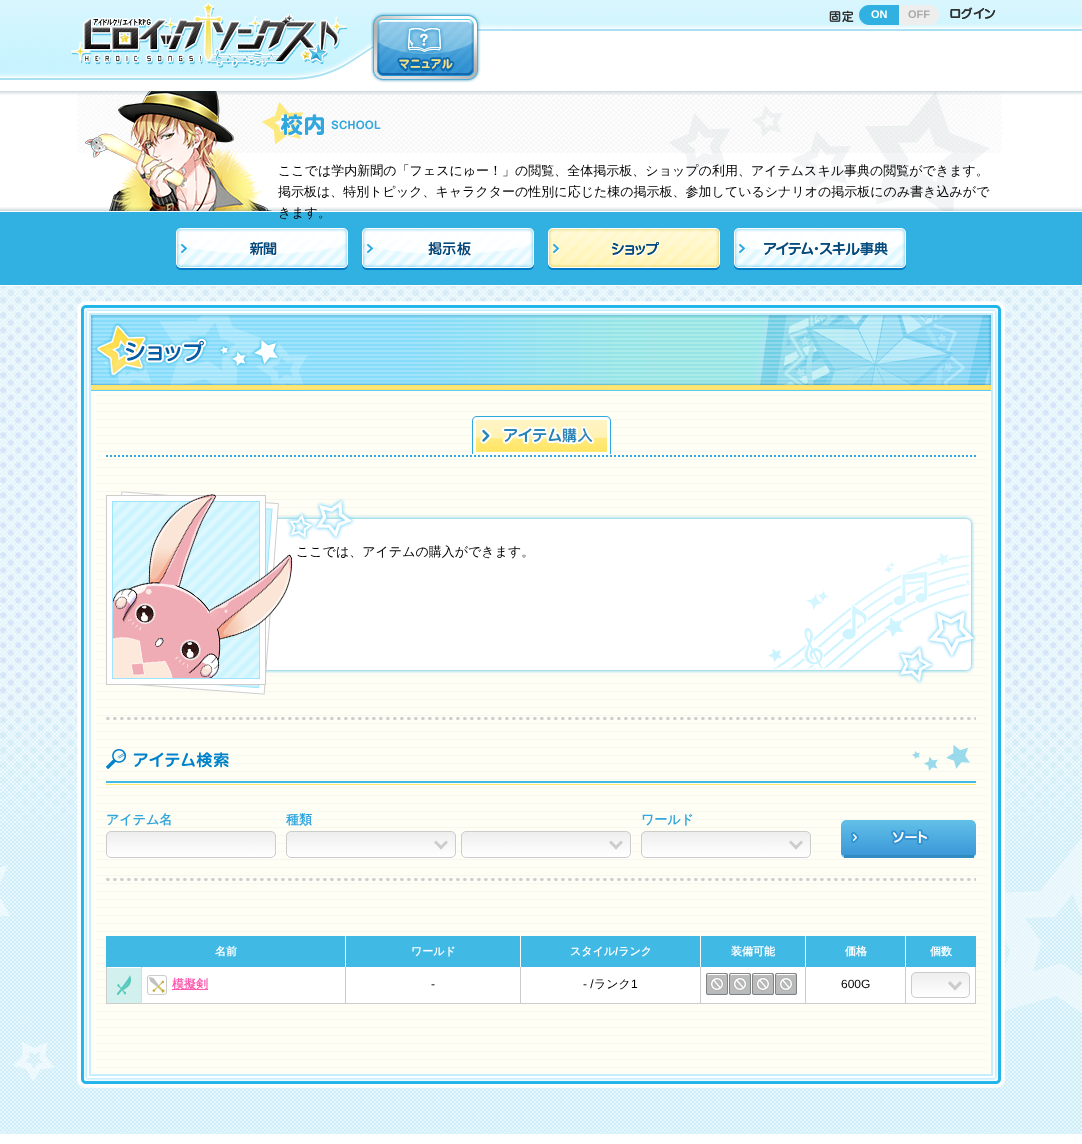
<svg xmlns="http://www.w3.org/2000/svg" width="1082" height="1144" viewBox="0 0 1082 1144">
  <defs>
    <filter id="blur1" x="-50%" y="-200%" width="200%" height="500%"><feGaussianBlur stdDeviation="0.5"/></filter>
    <clipPath id="clip1"><rect x="106" y="831" width="170" height="27" rx="5"/></clipPath>
    <linearGradient id="g1" gradientUnits="userSpaceOnUse" x1="107" y1="832" x2="107" y2="857"><stop offset="0" stop-color="#eeeeee"/><stop offset="1" stop-color="#ffffff"/></linearGradient>
    <clipPath id="clip2"><rect x="286" y="831" width="170" height="27" rx="5"/></clipPath>
    <linearGradient id="g2" gradientUnits="userSpaceOnUse" x1="287" y1="832" x2="287" y2="857"><stop offset="0" stop-color="#eeeeee"/><stop offset="1" stop-color="#ffffff"/></linearGradient>
    <clipPath id="clip3"><rect x="461" y="831" width="170" height="27" rx="5"/></clipPath>
    <linearGradient id="g3" gradientUnits="userSpaceOnUse" x1="462" y1="832" x2="462" y2="857"><stop offset="0" stop-color="#eeeeee"/><stop offset="1" stop-color="#ffffff"/></linearGradient>
    <clipPath id="clip4"><rect x="641" y="831" width="170" height="27" rx="5"/></clipPath>
    <linearGradient id="g4" gradientUnits="userSpaceOnUse" x1="642" y1="832" x2="642" y2="857"><stop offset="0" stop-color="#eeeeee"/><stop offset="1" stop-color="#ffffff"/></linearGradient>
    <clipPath id="clip5"><path d="M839 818H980V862H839ZM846 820H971C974 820 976 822 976 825V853C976 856 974 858 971 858H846C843 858 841 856 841 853V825C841 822 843 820 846 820Z" clip-rule="evenodd"/></clipPath>
    <clipPath id="clip6"><rect x="841" y="820" width="135" height="38" rx="5"/></clipPath>
    <linearGradient id="g5" gradientUnits="userSpaceOnUse" x1="841" y1="820" x2="841" y2="855"><stop offset="0" stop-color="#62c0e8"/><stop offset="1" stop-color="#3c98d8"/></linearGradient>
    <linearGradient id="g6" gradientUnits="userSpaceOnUse" x1="841" y1="855" x2="841" y2="890"><stop offset="0" stop-color="#62c0e8"/><stop offset="1" stop-color="#3c98d8"/></linearGradient>
    <clipPath id="clip7"><rect x="911" y="972" width="59" height="26" rx="5"/></clipPath>
    <linearGradient id="g7" gradientUnits="userSpaceOnUse" x1="912" y1="973" x2="912" y2="997"><stop offset="0" stop-color="#eeeeee"/><stop offset="1" stop-color="#ffffff"/></linearGradient>
  </defs>
  <rect width="100%" height="100%" fill="#ffffff"/>
  <image x="0" y="0" width="1082" height="80" href="img1.png"/>
  <image x="81" y="16" width="772" height="64" href="img2.png"/>
  <image x="71" y="2" width="277" height="66" href="img3.png"/>
  <image x="371" y="12" width="110" height="71" href="img4.png"/>
  <image x="829" y="10" width="25" height="12" href="img5.png"/>
  <image x="853" y="24" width="229" height="56" href="img7.png"/>
  <path d="M869 5H899V25H869C863.5 25 859 20.5 859 15C859 9.5 863.5 5 869 5Z" fill="#30b1e1"/>
  <text x="871" y="18" font-family="Liberation Sans" font-size="11" font-weight="bold" fill="#ffffff">ON</text>
  <path d="M899 5H929C934.5 5 939 9.5 939 15C939 20.5 934.5 25 929 25H899Z" fill="#eeeeee"/>
  <text x="908" y="18" font-family="Liberation Sans" font-size="11" font-weight="bold" fill="#aaaaaa">OFF</text>
  <image x="950" y="7" width="46" height="12" href="img6.png"/>
  <image x="77" y="92" width="925" height="119" href="img9.png"/>
  <image x="85" y="91" width="187" height="120" href="img10.png"/>
  <image x="0" y="91" width="1082" height="4" href="img8.png"/>
  <image x="262" y="102" width="119" height="43" href="img11.png"/>
  <text x="278" y="175" font-family="WenQuanYi Zen Hei" font-size="13" font-weight="500" fill="#000000">ここでは学内新聞の「フェスにゅー！」の閲覧、全体掲示板、ショップの利用、アイテムスキル事典の閲覧ができます。</text>
  <text x="278" y="196" font-family="WenQuanYi Zen Hei" font-size="13" font-weight="500" fill="#000000">掲示板は、特別トピック、キャラクターの性別に応じた棟の掲示板、参加しているシナリオの掲示板にのみ書き込みがで</text>
  <image x="0" y="207" width="1082" height="4" href="img12.png"/>
  <rect x="0" y="212" width="1082" height="73" fill="#30b1e1"/>
  <text x="278" y="217" font-family="WenQuanYi Zen Hei" font-size="13" font-weight="500" fill="#000000">きます。</text>
  <image x="0" y="286" width="1082" height="848" href="img13.png"/>
  <image x="176" y="228" width="172" height="42" href="img14.png"/>
  <image x="181" y="241" width="97" height="15" href="img15.png"/>
  <image x="362" y="228" width="172" height="42" href="img14.png"/>
  <image x="367" y="241" width="105" height="16" href="img16.png"/>
  <image x="548" y="228" width="172" height="42" href="img17.png"/>
  <image x="553" y="242" width="107" height="14" href="img18.png"/>
  <image x="734" y="228" width="172" height="42" href="img14.png"/>
  <image x="739" y="242" width="150" height="15" href="img19.png"/>
  <image x="77" y="301" width="928" height="14" href="img20.png"/>
  <image x="77" y="315" width="928" height="759" href="img21.png"/>
  <image x="97" y="391" width="890" height="677" href="img22.png"/>
  <image x="91" y="315" width="900" height="76" href="img23.png"/>
  <image x="94" y="322" width="186" height="56" href="img24.png"/>
  <path d="M106 456H976" fill="none" stroke="#32a6de" stroke-width="2" stroke-dasharray="2 2"/>
  <image x="472" y="416" width="139" height="38" href="img25.png"/>
  <image x="106" y="491" width="870" height="229" href="img26.png"/>
  <text x="296" y="556" font-family="WenQuanYi Zen Hei" font-size="13" font-weight="500" fill="#000000">ここでは、アイテムの購入ができます。</text>
  <image x="106" y="745" width="870" height="40" href="img27.png"/>
  <image x="106" y="749" width="123" height="20" href="img28.png"/>
  <image x="106" y="878" width="870" height="3" href="img29.png"/>
  <text x="106" y="824" font-family="WenQuanYi Zen Hei" font-size="13" font-weight="bold" fill="#32a6de">アイテム名</text>
  <rect x="107" y="832" width="170" height="27" rx="5" fill="#ffffff" filter="url(#blur1)"/>
  <g clip-path="url(#clip1)">
    <rect x="106" y="832" width="170" height="25" fill="url(#g1)"/>
  </g>
  <rect x="106.5" y="831.5" width="169" height="26" rx="4.5" fill="none" stroke="#cccccc"/>
  <text x="286" y="824" font-family="WenQuanYi Zen Hei" font-size="13" font-weight="bold" fill="#32a6de">種類</text>
  <rect x="287" y="832" width="170" height="27" rx="5" fill="#ffffff" filter="url(#blur1)"/>
  <g clip-path="url(#clip2)">
    <rect x="286" y="832" width="170" height="25" fill="url(#g2)"/>
  </g>
  <rect x="286.5" y="831.5" width="169" height="26" rx="4.5" fill="none" stroke="#cccccc"/>
  <path d="M446 840.5L448 842.5L441 849.5L439 847.5Z" fill="#cccccc"/>
  <path d="M436 840.5L443 847.5L441 849.5L434 842.5Z" fill="#cccccc"/>
  <rect x="462" y="832" width="170" height="27" rx="5" fill="#ffffff" filter="url(#blur1)"/>
  <g clip-path="url(#clip3)">
    <rect x="461" y="832" width="170" height="25" fill="url(#g3)"/>
  </g>
  <rect x="461.5" y="831.5" width="169" height="26" rx="4.5" fill="none" stroke="#cccccc"/>
  <path d="M621 840.5L623 842.5L616 849.5L614 847.5Z" fill="#cccccc"/>
  <path d="M611 840.5L618 847.5L616 849.5L609 842.5Z" fill="#cccccc"/>
  <text x="641" y="824" font-family="WenQuanYi Zen Hei" font-size="13" font-weight="bold" fill="#32a6de">ワールド</text>
  <rect x="642" y="832" width="170" height="27" rx="5" fill="#ffffff" filter="url(#blur1)"/>
  <g clip-path="url(#clip4)">
    <rect x="641" y="832" width="170" height="25" fill="url(#g4)"/>
  </g>
  <rect x="641.5" y="831.5" width="169" height="26" rx="4.5" fill="none" stroke="#cccccc"/>
  <path d="M801 840.5L803 842.5L796 849.5L794 847.5Z" fill="#cccccc"/>
  <path d="M791 840.5L798 847.5L796 849.5L789 842.5Z" fill="#cccccc"/>
  <g clip-path="url(#clip5)">
    <rect x="842" y="821" width="135" height="38" rx="5" fill="#ffffff" filter="url(#blur1)"/>
  </g>
  <g clip-path="url(#clip6)">
    <path d="M846 820H971C974 820 976 822 976 825V855H841V825C841 822 843 820 846 820Z" fill="url(#g5)"/>
    <rect x="841" y="855" width="135" height="3" fill="url(#g6)"/>
  </g>
  <rect x="844" y="855" width="130" height="3" fill="#318bc1"/>
  <image x="851" y="829" width="78" height="16" href="img30.png"/>
  <rect x="142" y="967" width="833" height="36" fill="#ffffff"/>
  <rect x="106" y="936" width="239" height="31" fill="#41b9e5"/>
  <rect x="345" y="936" width="1" height="31" fill="#ffffff"/>
  <text x="215" y="955" font-family="WenQuanYi Zen Hei" font-size="11" font-weight="bold" fill="#ffffff">名前</text>
  <rect x="346" y="936" width="174" height="31" fill="#41b9e5"/>
  <rect x="520" y="936" width="1" height="31" fill="#ffffff"/>
  <text x="411" y="955" font-family="WenQuanYi Zen Hei" font-size="11" font-weight="bold" fill="#ffffff">ワールド</text>
  <rect x="521" y="936" width="179" height="31" fill="#41b9e5"/>
  <rect x="700" y="936" width="1" height="31" fill="#ffffff"/>
  <text x="570" y="955" font-family="WenQuanYi Zen Hei" font-size="11" font-weight="bold" fill="#ffffff">スタイル ランク</text>
  <text x="615" y="955" font-family="Liberation Sans" font-size="11" font-weight="bold" fill="#ffffff">/</text>
  <rect x="701" y="936" width="104" height="31" fill="#41b9e5"/>
  <rect x="805" y="936" width="1" height="31" fill="#ffffff"/>
  <text x="731" y="955" font-family="WenQuanYi Zen Hei" font-size="11" font-weight="bold" fill="#ffffff">装備可能</text>
  <rect x="806" y="936" width="99" height="31" fill="#41b9e5"/>
  <rect x="905" y="936" width="1" height="31" fill="#ffffff"/>
  <text x="845" y="955" font-family="WenQuanYi Zen Hei" font-size="11" font-weight="bold" fill="#ffffff">価格</text>
  <rect x="906" y="936" width="70" height="31" fill="#41b9e5"/>
  <text x="930" y="955" font-family="WenQuanYi Zen Hei" font-size="11" font-weight="bold" fill="#ffffff">個数</text>
  <rect x="107" y="968" width="35" height="35" fill="#d2f0ed"/>
  <image x="117" y="975" width="14" height="20" href="img31.png"/>
  <rect x="106" y="967" width="36" height="1" fill="#ffffff"/>
  <path d="M141.5 967V1004" fill="none" stroke="#9fe6df" stroke-dasharray="1 1"/>
  <rect x="106" y="1003" width="36" height="1" fill="#cccccc"/>
  <rect x="106" y="967" width="1" height="37" fill="#cccccc"/>
  <rect x="345" y="967" width="1" height="37" fill="#cccccc"/>
  <rect x="142" y="1003" width="204" height="1" fill="#cccccc"/>
  <image x="147" y="975" width="61" height="20" href="img32.png"/>
  <text x="172" y="988" font-family="WenQuanYi Zen Hei" font-size="12" font-weight="bold" fill="#ff58ae">模擬剣</text>
  <rect x="520" y="967" width="1" height="37" fill="#cccccc"/>
  <rect x="346" y="1003" width="175" height="1" fill="#cccccc"/>
  <text x="431" y="988" font-family="Liberation Sans" font-size="12" fill="#000000">-</text>
  <rect x="700" y="967" width="1" height="37" fill="#cccccc"/>
  <rect x="521" y="1003" width="180" height="1" fill="#cccccc"/>
  <text x="583" y="988" font-family="Liberation Sans" font-size="12" fill="#000000">- /</text>
  <text x="594" y="988" font-family="WenQuanYi Zen Hei" font-size="12" font-weight="500" fill="#000000">ランク</text>
  <text x="631" y="988" font-family="Liberation Sans" font-size="12" fill="#000000">1</text>
  <rect x="805" y="967" width="1" height="37" fill="#cccccc"/>
  <rect x="701" y="1003" width="105" height="1" fill="#cccccc"/>
  <image x="706" y="973" width="22" height="22" href="img33.png"/>
  <image x="729" y="973" width="22" height="22" href="img33.png"/>
  <image x="752" y="973" width="22" height="22" href="img33.png"/>
  <image x="775" y="973" width="22" height="22" href="img33.png"/>
  <rect x="905" y="967" width="1" height="37" fill="#cccccc"/>
  <rect x="806" y="1003" width="100" height="1" fill="#cccccc"/>
  <text x="841" y="988" font-family="Liberation Sans" font-size="12" fill="#000000">600G</text>
  <rect x="975" y="967" width="1" height="37" fill="#cccccc"/>
  <rect x="906" y="1003" width="70" height="1" fill="#cccccc"/>
  <g clip-path="url(#clip7)">
    <rect x="911" y="973" width="59" height="24" fill="url(#g7)"/>
  </g>
  <rect x="911.5" y="972.5" width="58" height="25" rx="4.5" fill="none" stroke="#cccccc"/>
  <path d="M960 981L962 983.5L955 990.5L953 988Z" fill="#cccccc"/>
  <path d="M950 981L957 988L955 990.5L948 983.5Z" fill="#cccccc"/>
  <image x="77" y="1074" width="928" height="14" href="img34.png"/>
</svg>
